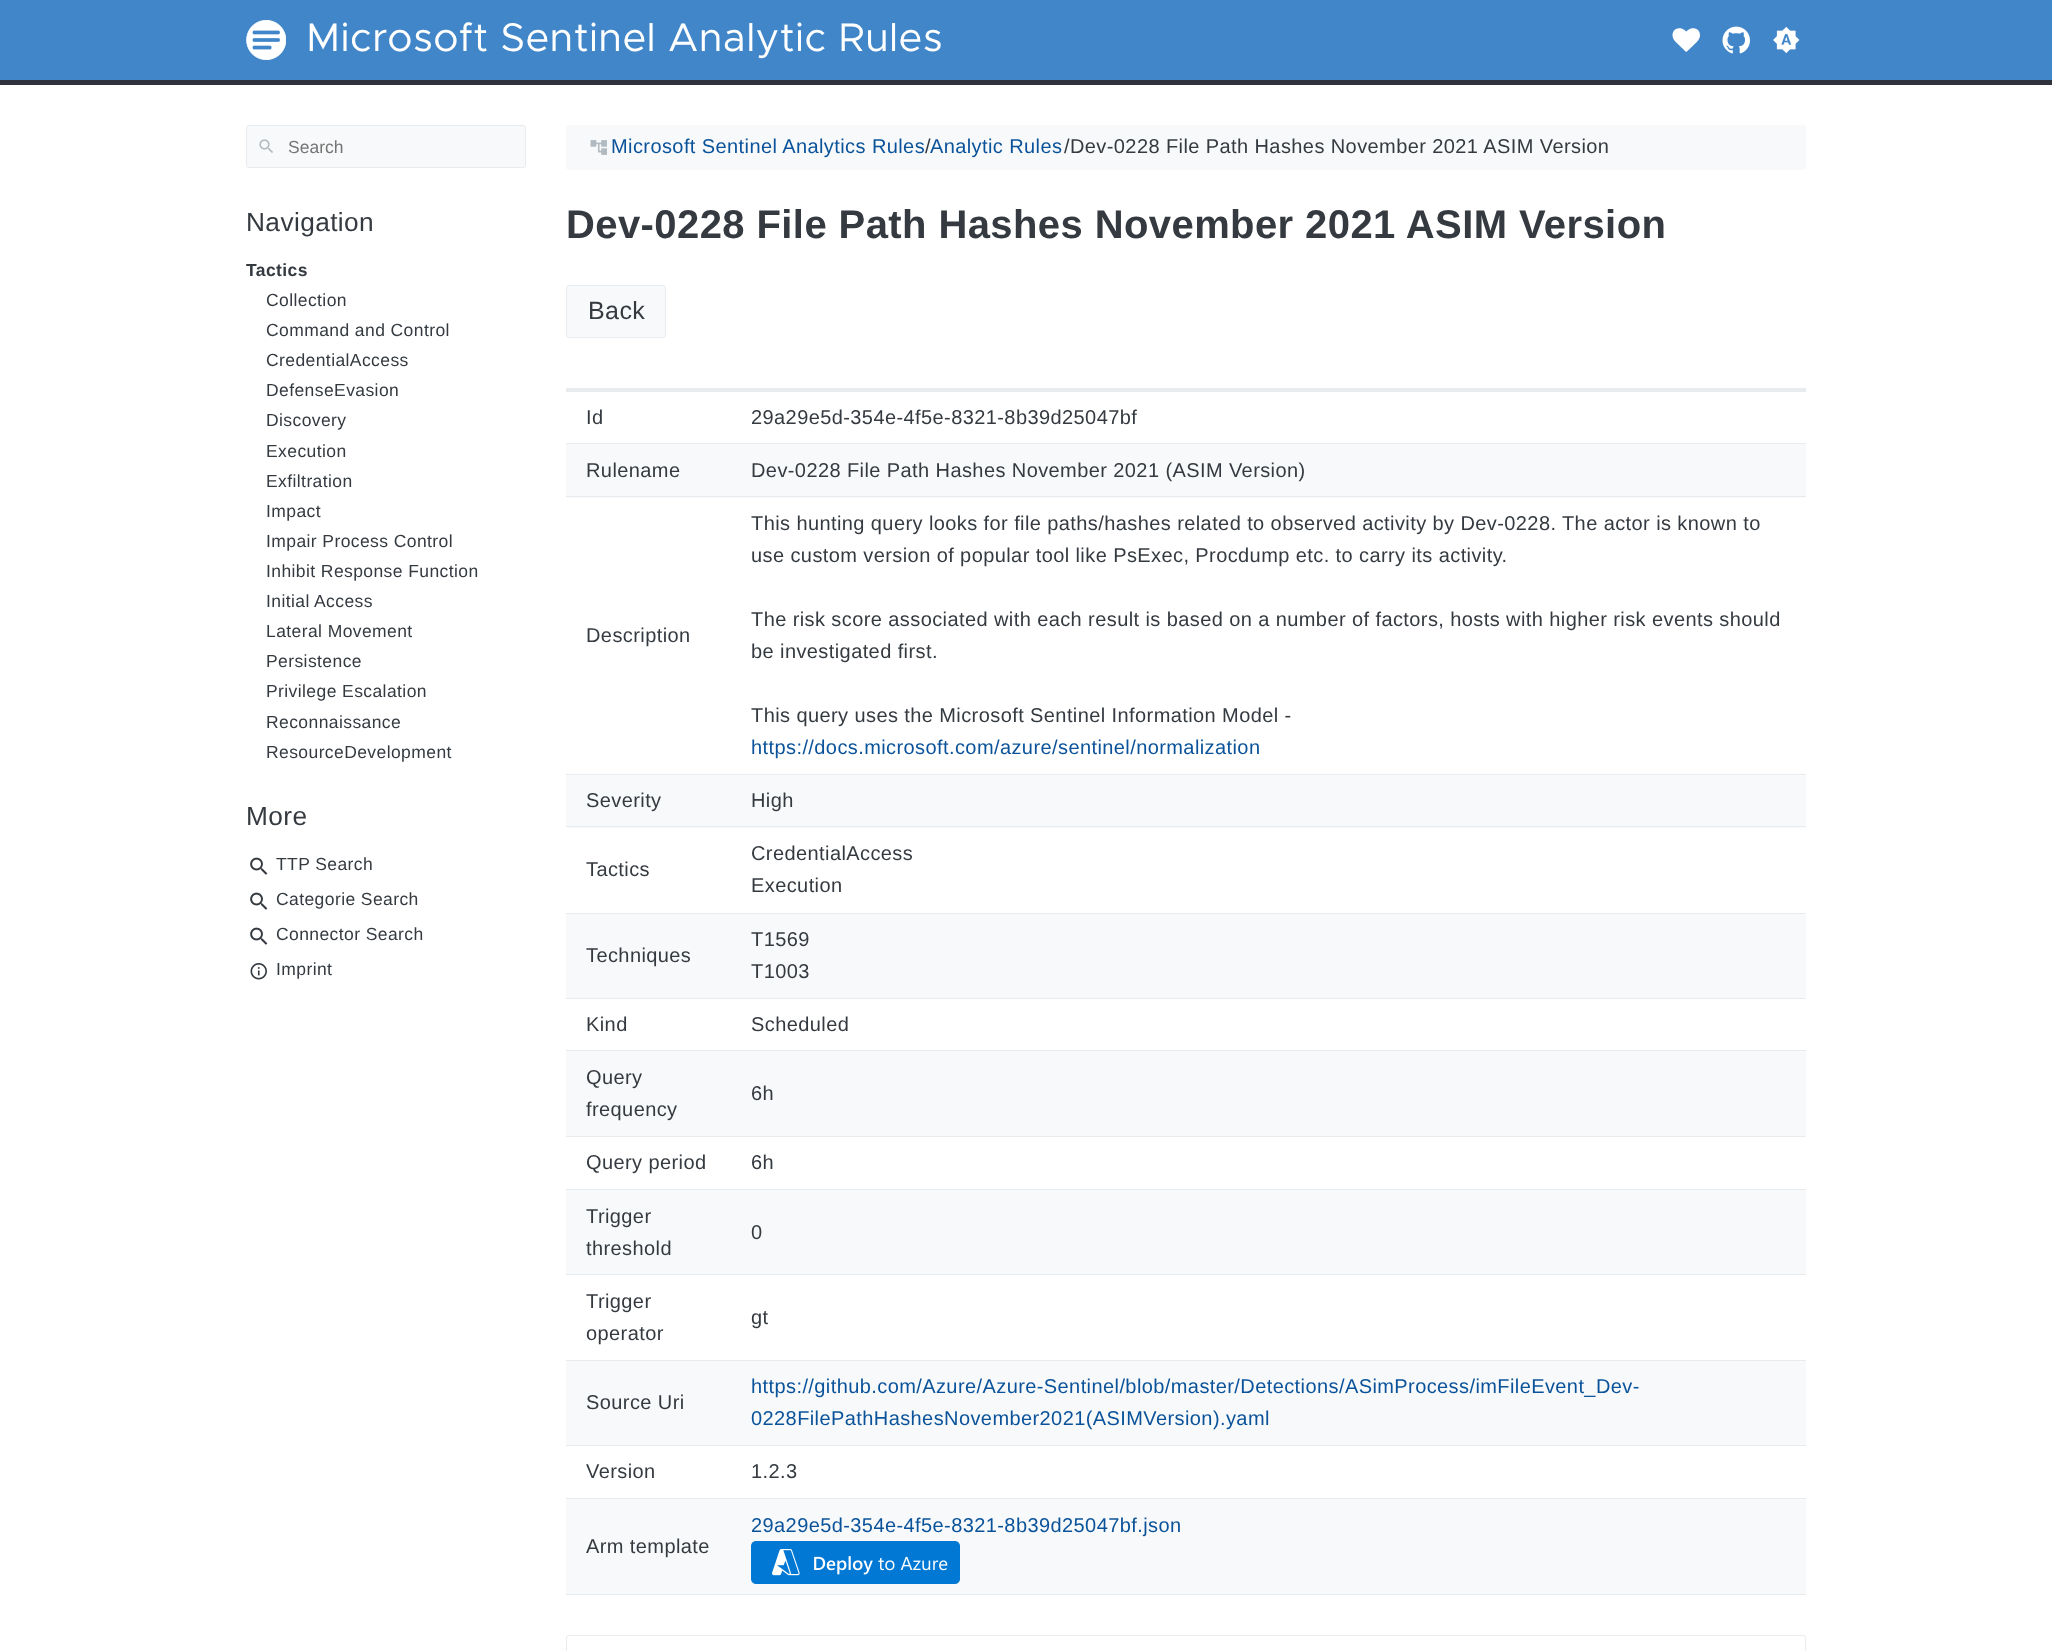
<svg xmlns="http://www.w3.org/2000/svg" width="2052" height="1651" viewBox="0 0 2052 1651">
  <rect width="100%" height="100%" fill="#ffffff"/>
  <rect x="0" y="0" width="2052" height="80" fill="#4186c9"/>
  <rect x="0" y="80" width="2052" height="5" fill="#2f333e"/>
  <image x="246" y="20" width="40" height="40" href="img1.png"/>
  <text x="306" y="51" font-family="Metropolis" font-size="40" letter-spacing="0.41" fill="#ffffff">Microsoft Sentinel Analytic Rules</text>
  <image x="1672" y="28" width="28" height="24" href="img2.png"/>
  <image x="1722" y="26" width="28" height="28" href="img3.png"/>
  <image x="1773" y="26" width="27" height="28" href="img4.png"/>
  <rect x="246.5" y="125.5" width="279" height="42" rx="2.5" fill="#f8f9fa" stroke="#e9ecef"/>
  <image x="259" y="139" width="14" height="14" href="img5.png"/>
  <text x="288" y="153" font-family="Liberation Sans" font-size="17.5" fill="#757575">Search</text>
  <text x="246" y="231" font-family="Liberation Sans" font-size="26.25" letter-spacing="0.41" fill="#343a40">Navigation</text>
  <text x="246" y="276" font-family="Liberation Sans" font-size="17.5" font-weight="bold" letter-spacing="0.41" fill="#343a40">Tactics</text>
  <text x="266" y="306" font-family="Liberation Sans" font-size="17.5" letter-spacing="0.41" fill="#343a40">Collection</text>
  <text x="266" y="336" font-family="Liberation Sans" font-size="17.5" letter-spacing="0.41" fill="#343a40">Command and Control</text>
  <text x="266" y="366" font-family="Liberation Sans" font-size="17.5" letter-spacing="0.41" fill="#343a40">CredentialAccess</text>
  <text x="266" y="396" font-family="Liberation Sans" font-size="17.5" letter-spacing="0.41" fill="#343a40">DefenseEvasion</text>
  <text x="266" y="426" font-family="Liberation Sans" font-size="17.5" letter-spacing="0.41" fill="#343a40">Discovery</text>
  <text x="266" y="457" font-family="Liberation Sans" font-size="17.5" letter-spacing="0.41" fill="#343a40">Execution</text>
  <text x="266" y="487" font-family="Liberation Sans" font-size="17.5" letter-spacing="0.41" fill="#343a40">Exfiltration</text>
  <text x="266" y="517" font-family="Liberation Sans" font-size="17.5" letter-spacing="0.41" fill="#343a40">Impact</text>
  <text x="266" y="547" font-family="Liberation Sans" font-size="17.5" letter-spacing="0.41" fill="#343a40">Impair Process Control</text>
  <text x="266" y="577" font-family="Liberation Sans" font-size="17.5" letter-spacing="0.41" fill="#343a40">Inhibit Response Function</text>
  <text x="266" y="607" font-family="Liberation Sans" font-size="17.5" letter-spacing="0.41" fill="#343a40">Initial Access</text>
  <text x="266" y="637" font-family="Liberation Sans" font-size="17.5" letter-spacing="0.41" fill="#343a40">Lateral Movement</text>
  <text x="266" y="667" font-family="Liberation Sans" font-size="17.5" letter-spacing="0.41" fill="#343a40">Persistence</text>
  <text x="266" y="697" font-family="Liberation Sans" font-size="17.5" letter-spacing="0.41" fill="#343a40">Privilege Escalation</text>
  <text x="266" y="728" font-family="Liberation Sans" font-size="17.5" letter-spacing="0.41" fill="#343a40">Reconnaissance</text>
  <text x="266" y="758" font-family="Liberation Sans" font-size="17.5" letter-spacing="0.41" fill="#343a40">ResourceDevelopment</text>
  <text x="246" y="825" font-family="Liberation Sans" font-size="26.25" letter-spacing="0.41" fill="#343a40">More</text>
  <image x="250" y="857" width="18" height="18" href="img6.png"/>
  <text x="276" y="870" font-family="Liberation Sans" font-size="17.5" letter-spacing="0.41" fill="#343a40">TTP Search</text>
  <image x="250" y="892" width="18" height="18" href="img6.png"/>
  <text x="276" y="905" font-family="Liberation Sans" font-size="17.5" letter-spacing="0.41" fill="#343a40">Categorie Search</text>
  <image x="250" y="927" width="18" height="18" href="img6.png"/>
  <text x="276" y="940" font-family="Liberation Sans" font-size="17.5" letter-spacing="0.41" fill="#343a40">Connector Search</text>
  <image x="250" y="963" width="17" height="17" href="img7.png"/>
  <text x="276" y="975" font-family="Liberation Sans" font-size="17.5" letter-spacing="0.41" fill="#343a40">Imprint</text>
  <rect x="566" y="125" width="1240" height="45" rx="3" fill="#f8f9fa"/>
  <text x="611" y="153" font-family="Liberation Sans" font-size="20" letter-spacing="0.41" fill="#0a539a">Microsoft Sentinel Analytics Rules Analytic Rules</text>
  <image x="590" y="140" width="17" height="15" href="img8.png"/>
  <text x="925" y="153" font-family="Liberation Sans" font-size="20" letter-spacing="0.41" fill="#343a40">/</text>
  <text x="1064" y="153" font-family="Liberation Sans" font-size="20" letter-spacing="0.41" fill="#343a40">/Dev-0228 File Path Hashes November 2021 ASIM Version</text>
  <text x="566" y="238" font-family="Liberation Sans" font-size="40" font-weight="bold" letter-spacing="0.41" fill="#343a40">Dev-0228 File Path Hashes November 2021 ASIM Version</text>
  <rect x="566.5" y="285.5" width="99" height="52" rx="2.5" fill="#f8f9fa" stroke="#e9ecef"/>
  <text x="588" y="319" font-family="Liberation Sans" font-size="25" letter-spacing="0.41" fill="#343a40">Back</text>
  <rect x="566" y="388" width="1240" height="4" fill="#e9ecef"/>
  <rect x="566" y="443" width="1240" height="1" fill="#e9ecef"/>
  <text x="586" y="424" font-family="Liberation Sans" font-size="20" letter-spacing="0.41" fill="#343a40">Id</text>
  <text x="751" y="424" font-family="Liberation Sans" font-size="20" letter-spacing="0.41" fill="#343a40">29a29e5d-354e-4f5e-8321-8b39d25047bf</text>
  <rect x="566" y="444" width="1240" height="54" fill="#f8f9fa"/>
  <rect x="566" y="496" width="1240" height="1" fill="#e9ecef"/>
  <text x="586" y="477" font-family="Liberation Sans" font-size="20" letter-spacing="0.41" fill="#343a40">Rulename</text>
  <text x="751" y="477" font-family="Liberation Sans" font-size="20" letter-spacing="0.41" fill="#343a40">Dev-0228 File Path Hashes November 2021 (ASIM Version)</text>
  <rect x="566" y="774" width="1240" height="1" fill="#e9ecef"/>
  <text x="586" y="642" font-family="Liberation Sans" font-size="20" letter-spacing="0.41" fill="#343a40">Description</text>
  <text x="751" y="530" font-family="Liberation Sans" font-size="20" letter-spacing="0.41" fill="#343a40">This hunting query looks for file paths/hashes related to observed activity by Dev-0228. The actor is known to</text>
  <text x="751" y="562" font-family="Liberation Sans" font-size="20" letter-spacing="0.41" fill="#343a40">use custom version of popular tool like PsExec, Procdump etc. to carry its activity.</text>
  <text x="751" y="626" font-family="Liberation Sans" font-size="20" letter-spacing="0.41" fill="#343a40">The risk score associated with each result is based on a number of factors, hosts with higher risk events should</text>
  <text x="751" y="658" font-family="Liberation Sans" font-size="20" letter-spacing="0.41" fill="#343a40">be investigated first.</text>
  <text x="751" y="722" font-family="Liberation Sans" font-size="20" letter-spacing="0.41" fill="#343a40">This query uses the Microsoft Sentinel Information Model -</text>
  <text x="751" y="754" font-family="Liberation Sans" font-size="20" letter-spacing="0.41" fill="#0a539a">https://docs.microsoft.com/azure/sentinel/normalization</text>
  <rect x="566" y="775" width="1240" height="53" fill="#f8f9fa"/>
  <rect x="566" y="826" width="1240" height="1" fill="#e9ecef"/>
  <text x="586" y="807" font-family="Liberation Sans" font-size="20" letter-spacing="0.41" fill="#343a40">Severity</text>
  <text x="751" y="807" font-family="Liberation Sans" font-size="20" letter-spacing="0.41" fill="#343a40">High</text>
  <rect x="566" y="913" width="1240" height="1" fill="#e9ecef"/>
  <text x="586" y="876" font-family="Liberation Sans" font-size="20" letter-spacing="0.41" fill="#343a40">Tactics</text>
  <text x="751" y="860" font-family="Liberation Sans" font-size="20" letter-spacing="0.41" fill="#343a40">CredentialAccess</text>
  <text x="751" y="892" font-family="Liberation Sans" font-size="20" letter-spacing="0.41" fill="#343a40">Execution</text>
  <rect x="566" y="914" width="1240" height="84" fill="#f8f9fa"/>
  <rect x="566" y="998" width="1240" height="1" fill="#e9ecef"/>
  <text x="586" y="962" font-family="Liberation Sans" font-size="20" letter-spacing="0.41" fill="#343a40">Techniques</text>
  <text x="751" y="946" font-family="Liberation Sans" font-size="20" letter-spacing="0.41" fill="#343a40">T1569</text>
  <text x="751" y="978" font-family="Liberation Sans" font-size="20" letter-spacing="0.41" fill="#343a40">T1003</text>
  <rect x="566" y="1050" width="1240" height="1" fill="#e9ecef"/>
  <text x="586" y="1031" font-family="Liberation Sans" font-size="20" letter-spacing="0.41" fill="#343a40">Kind</text>
  <text x="751" y="1031" font-family="Liberation Sans" font-size="20" letter-spacing="0.41" fill="#343a40">Scheduled</text>
  <rect x="566" y="1051" width="1240" height="85" fill="#f8f9fa"/>
  <rect x="566" y="1136" width="1240" height="1" fill="#e9ecef"/>
  <text x="586" y="1084" font-family="Liberation Sans" font-size="20" letter-spacing="0.41" fill="#343a40">Query</text>
  <text x="586" y="1116" font-family="Liberation Sans" font-size="20" letter-spacing="0.41" fill="#343a40">frequency</text>
  <text x="751" y="1100" font-family="Liberation Sans" font-size="20" letter-spacing="0.41" fill="#343a40">6h</text>
  <rect x="566" y="1189" width="1240" height="1" fill="#e9ecef"/>
  <text x="586" y="1169" font-family="Liberation Sans" font-size="20" letter-spacing="0.41" fill="#343a40">Query period</text>
  <text x="751" y="1169" font-family="Liberation Sans" font-size="20" letter-spacing="0.41" fill="#343a40">6h</text>
  <rect x="566" y="1190" width="1240" height="84" fill="#f8f9fa"/>
  <rect x="566" y="1274" width="1240" height="1" fill="#e9ecef"/>
  <text x="586" y="1223" font-family="Liberation Sans" font-size="20" letter-spacing="0.41" fill="#343a40">Trigger</text>
  <text x="586" y="1255" font-family="Liberation Sans" font-size="20" letter-spacing="0.41" fill="#343a40">threshold</text>
  <text x="751" y="1239" font-family="Liberation Sans" font-size="20" letter-spacing="0.41" fill="#343a40">0</text>
  <rect x="566" y="1360" width="1240" height="1" fill="#e9ecef"/>
  <text x="586" y="1308" font-family="Liberation Sans" font-size="20" letter-spacing="0.41" fill="#343a40">Trigger</text>
  <text x="586" y="1340" font-family="Liberation Sans" font-size="20" letter-spacing="0.41" fill="#343a40">operator</text>
  <text x="751" y="1324" font-family="Liberation Sans" font-size="20" letter-spacing="0.41" fill="#343a40">gt</text>
  <rect x="566" y="1361" width="1240" height="84" fill="#f8f9fa"/>
  <rect x="566" y="1445" width="1240" height="1" fill="#e9ecef"/>
  <text x="586" y="1409" font-family="Liberation Sans" font-size="20" letter-spacing="0.41" fill="#343a40">Source Uri</text>
  <text x="751" y="1393" font-family="Liberation Sans" font-size="20" letter-spacing="0.41" fill="#0a539a">https://github.com/Azure/Azure-Sentinel/blob/master/Detections/ASimProcess/imFileEvent_Dev-</text>
  <text x="751" y="1425" font-family="Liberation Sans" font-size="20" letter-spacing="0.41" fill="#0a539a">0228FilePathHashesNovember2021(ASIMVersion).yaml</text>
  <rect x="566" y="1498" width="1240" height="1" fill="#e9ecef"/>
  <text x="586" y="1478" font-family="Liberation Sans" font-size="20" letter-spacing="0.41" fill="#343a40">Version</text>
  <text x="751" y="1478" font-family="Liberation Sans" font-size="20" letter-spacing="0.41" fill="#343a40">1.2.3</text>
  <rect x="566" y="1499" width="1240" height="95" fill="#f8f9fa"/>
  <rect x="566" y="1594" width="1240" height="1" fill="#e9ecef"/>
  <text x="751" y="1532" font-family="Liberation Sans" font-size="20" letter-spacing="0.41" fill="#0a539a">29a29e5d-354e-4f5e-8321-8b39d25047bf.json</text>
  <image x="751" y="1541" width="209" height="43" href="img9.png"/>
  <text x="586" y="1553" font-family="Liberation Sans" font-size="20" letter-spacing="0.41" fill="#343a40">Arm template</text>
  <rect x="566.5" y="1635.5" width="1239" height="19" rx="2.5" fill="none" stroke="#e9ecef"/>
</svg>
